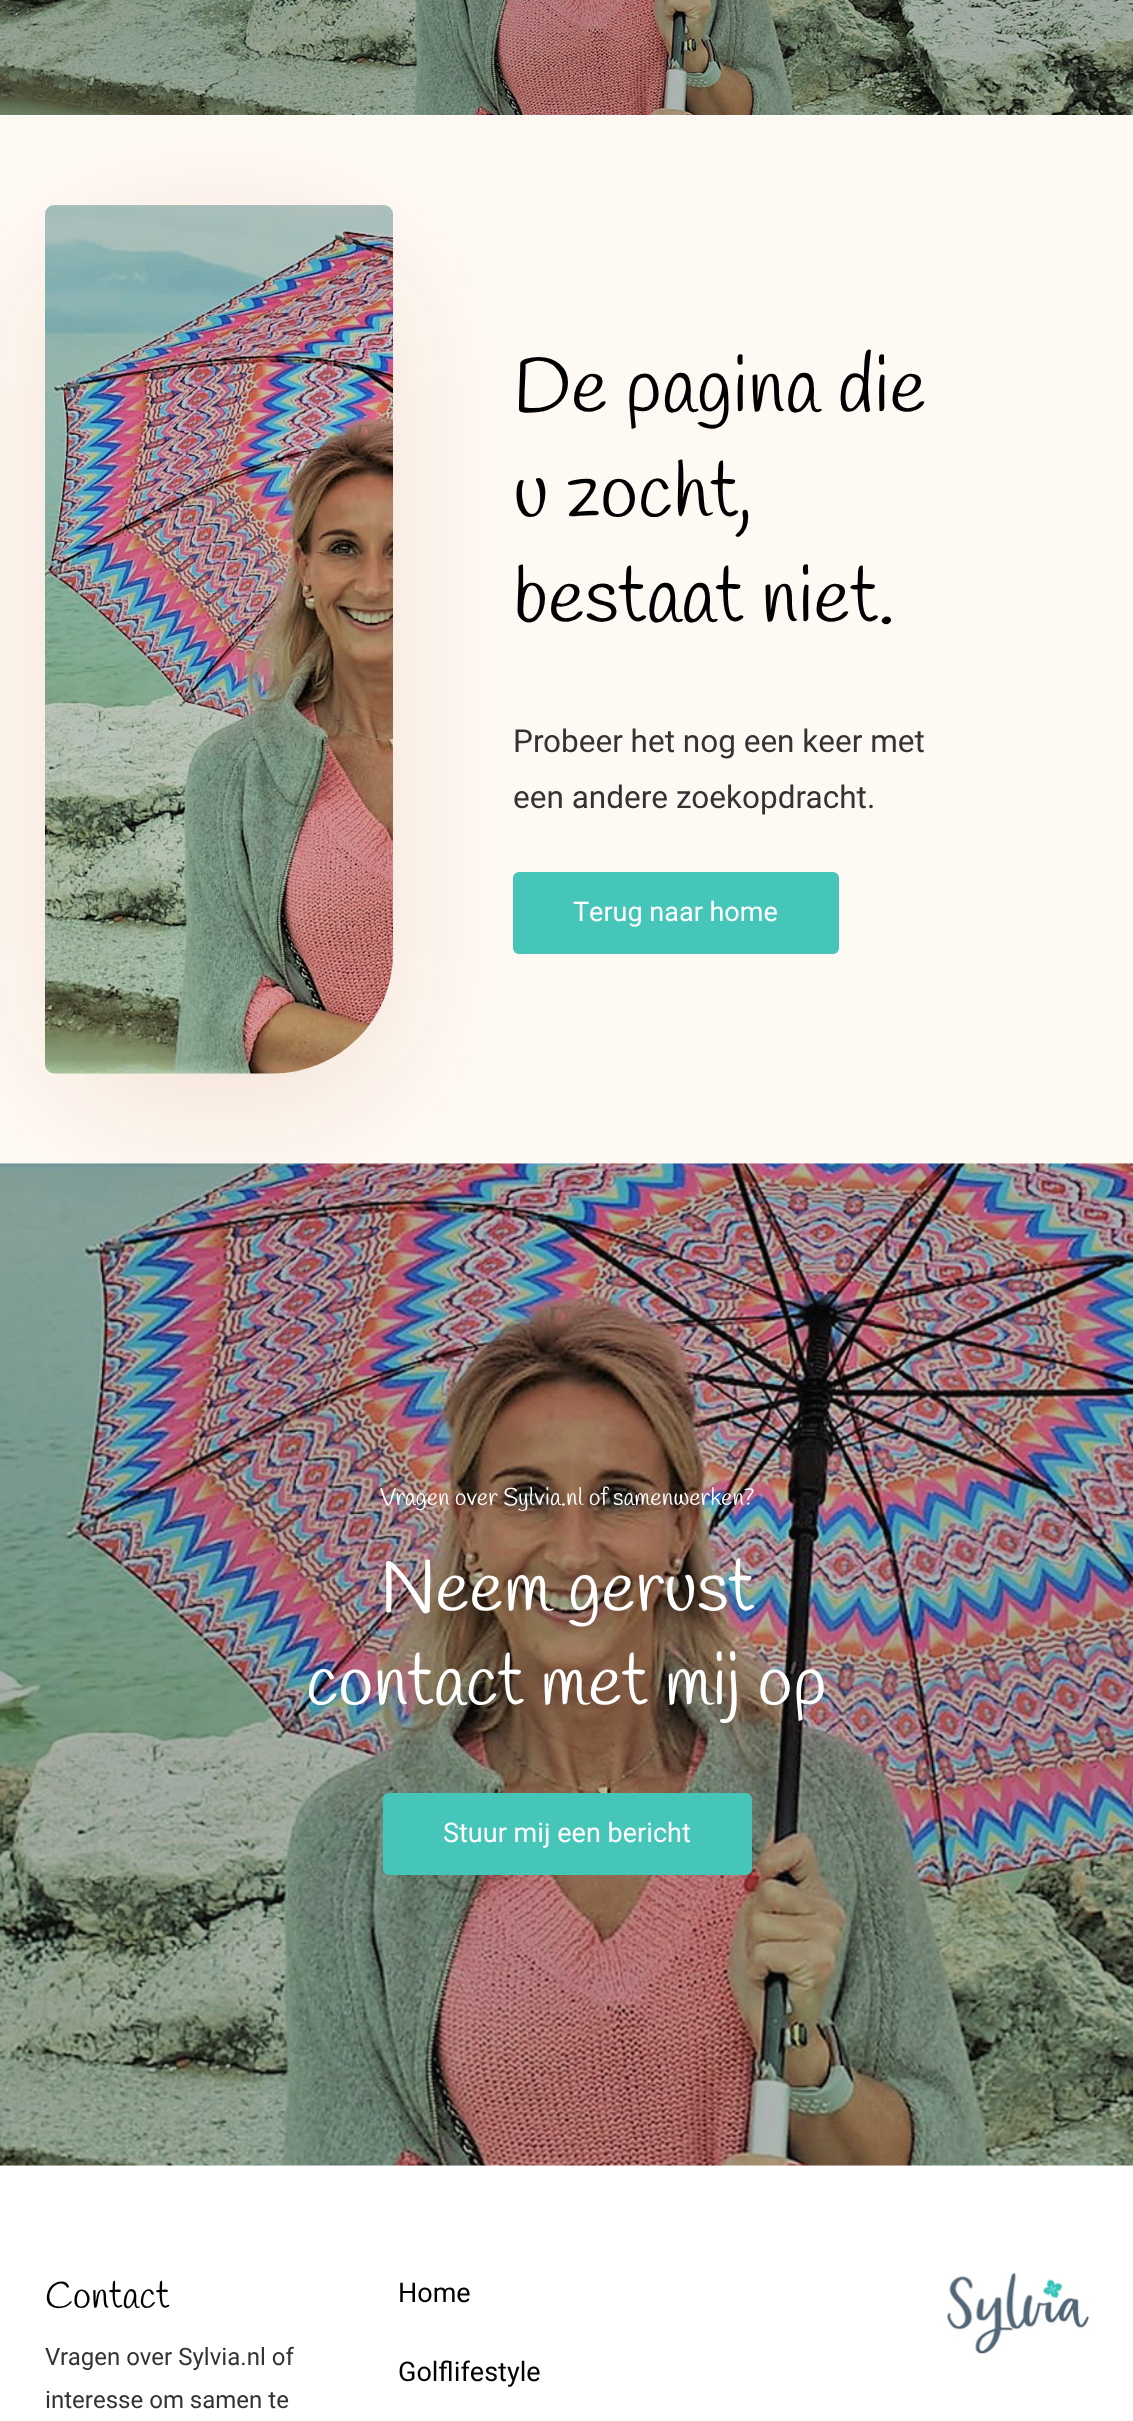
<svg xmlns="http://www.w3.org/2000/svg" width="1133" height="2421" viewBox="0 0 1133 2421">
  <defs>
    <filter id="blur1" x="-50%" y="-200%" width="200%" height="500%"><feGaussianBlur stdDeviation="60"/></filter>
  </defs>
  <rect width="100%" height="100%" fill="#ffffff"/>
  <image x="0" y="0" width="1133" height="115" href="img1.png"/>
  <rect x="0" y="116" width="1133" height="1048" fill="#fff9f4"/>
  <image x="0" y="1163" width="1133" height="1003" href="img3.png"/>
  <rect x="45" y="236" width="348" height="868" rx="120" fill="#9b4e00" fill-opacity="0.13" filter="url(#blur1)"/>
  <image x="45" y="205" width="348" height="869" href="img2.png"/>
  <text x="513" y="412" font-family="Handlee" font-size="77.5" fill="#000000">De pagina die</text>
  <text x="513" y="517" font-family="Handlee" font-size="77.5" fill="#000000">u zocht,</text>
  <text x="513" y="622" font-family="Handlee" font-size="77.5" fill="#000000">bestaat niet.</text>
  <text x="513" y="752" font-family="Heebo" font-size="31.5" fill="#333333">Probeer het nog een keer met</text>
  <text x="513" y="808" font-family="Heebo" font-size="31.5" fill="#333333">een andere zoekopdracht.</text>
  <rect x="513" y="872" width="326" height="82" rx="6" fill="#46c5b9"/>
  <text x="573" y="921" font-family="Heebo" font-size="27" fill="#ffffff">Terug naar home</text>
  <text x="380" y="1505" font-family="Handlee" font-size="24" fill="#ffffff">Vragen over Sylvia.nl of samenwerken?</text>
  <text x="380" y="1611" font-family="Handlee" font-size="72" fill="#ffffff">Neem gerust</text>
  <text x="306" y="1705" font-family="Handlee" font-size="72" fill="#ffffff">contact met mij op</text>
  <rect x="383" y="1793" width="369" height="82" rx="6" fill="#46c5b9"/>
  <text x="443" y="1842" font-family="Heebo" font-size="27" fill="#ffffff">Stuur mij een bericht</text>
  <text x="45" y="2308" font-family="Handlee" font-size="37.5" fill="#000000">Contact</text>
  <text x="45" y="2365" font-family="Heebo" font-size="24" fill="#333333">Vragen over Sylvia.nl of</text>
  <text x="45" y="2408" font-family="Heebo" font-size="24" fill="#333333">interesse om samen te</text>
  <text x="398" y="2302" font-family="Heebo" font-size="27" fill="#000000">Home</text>
  <text x="398" y="2381" font-family="Heebo" font-size="27" fill="#000000">Golflifestyle</text>
  <image x="947" y="2272" width="142" height="82" href="img4.png"/>
</svg>
